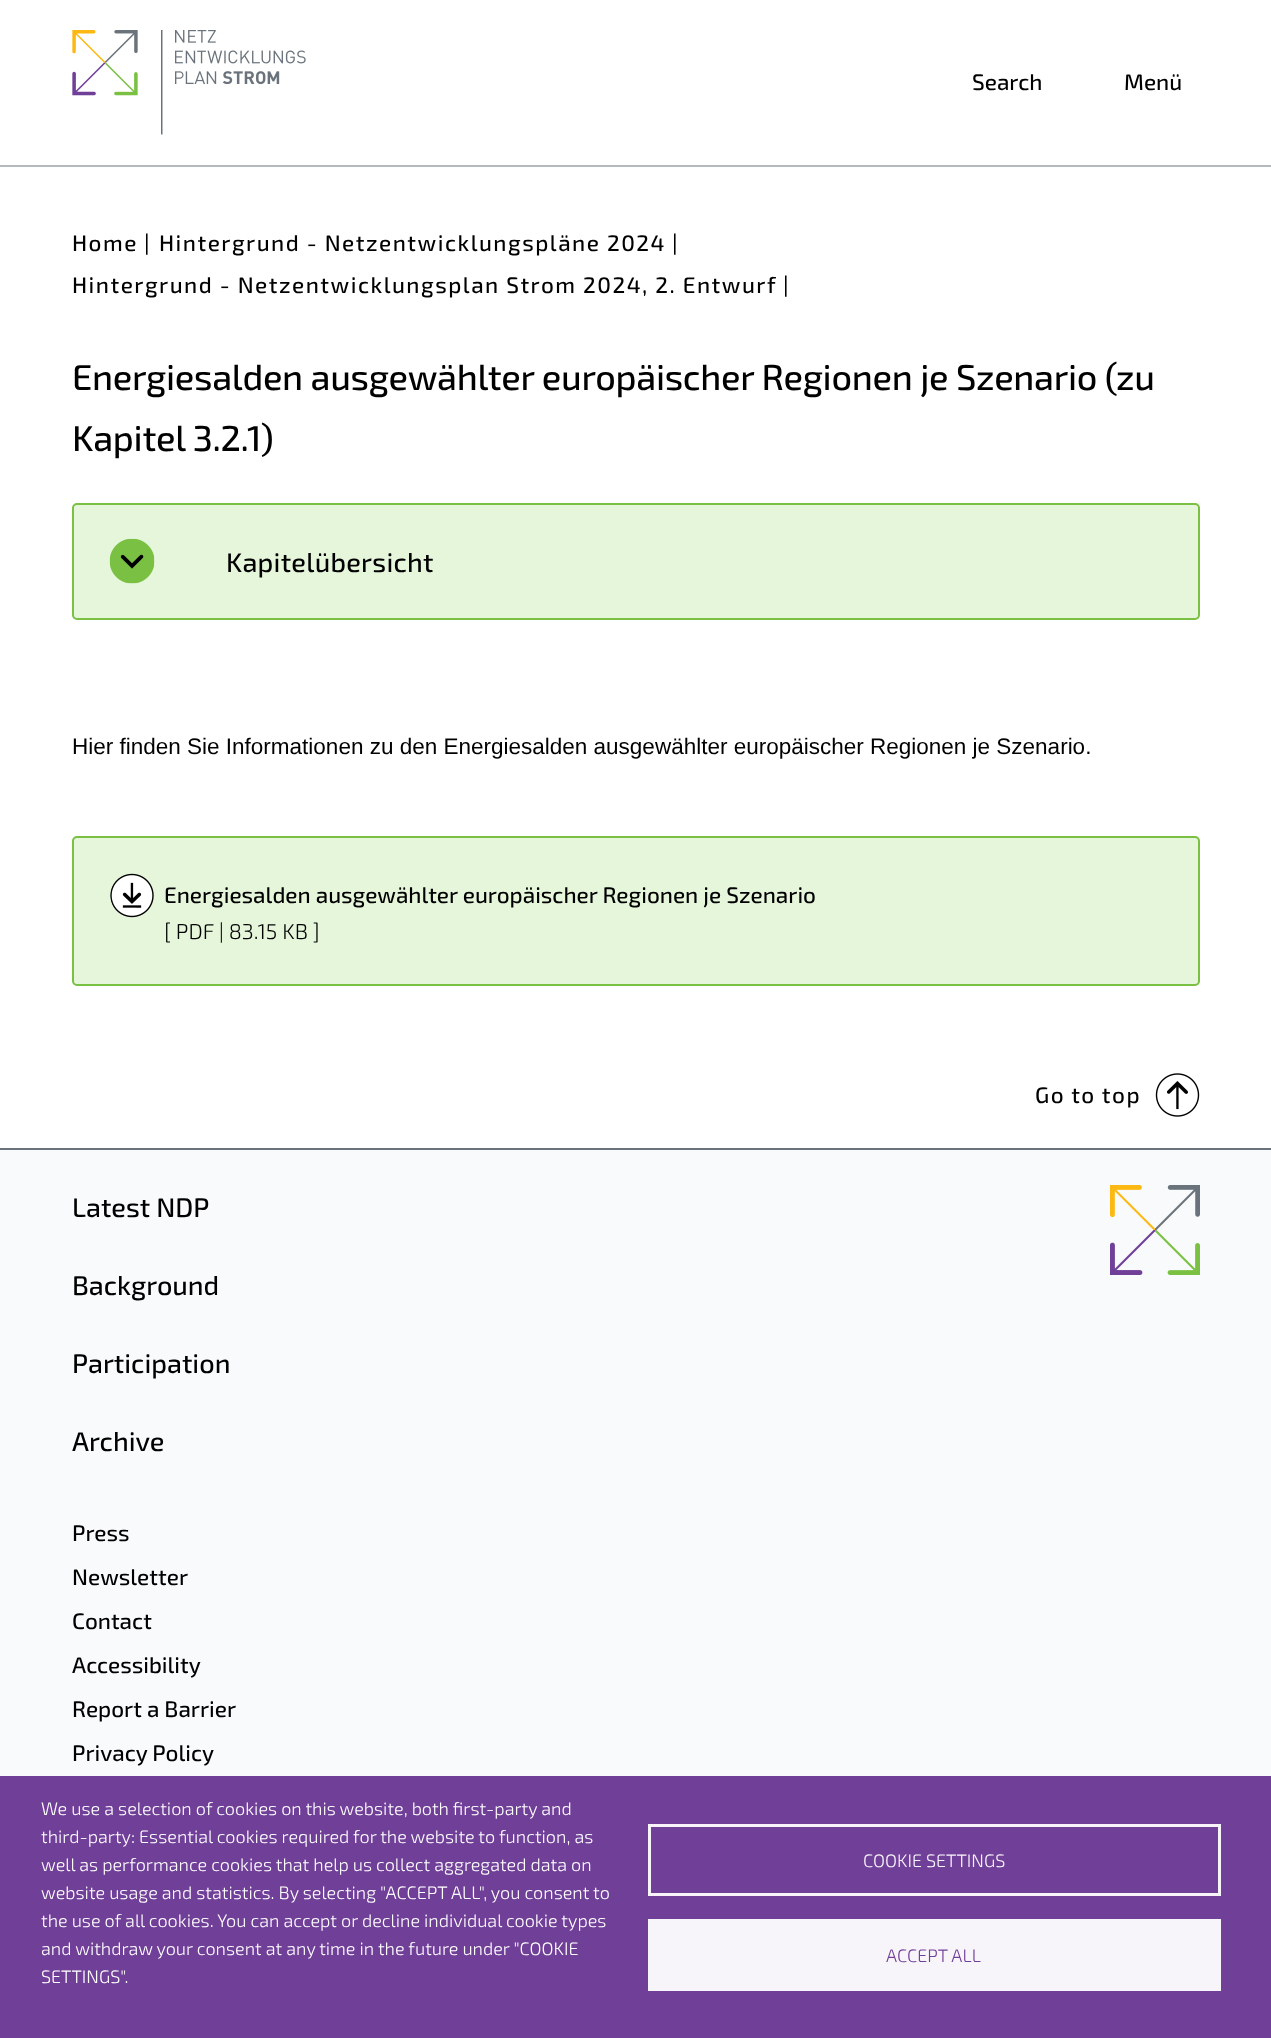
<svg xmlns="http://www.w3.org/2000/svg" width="1271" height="2038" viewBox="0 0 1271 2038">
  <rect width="100%" height="100%" fill="#ffffff"/>
  <rect x="0" y="165" width="1271" height="2" fill="#b4b9bd"/>
  <image x="72" y="30" width="234" height="105" href="img1.png"/>
  <text x="972" y="90" font-family="'Exo 2'" font-size="22.5" font-weight="500" fill="#000000">Search</text>
  <text x="1124" y="90" font-family="'Exo 2'" font-size="22.5" font-weight="500" fill="#000000">Menü</text>
  <text x="72" y="251" font-family="'Exo 2'" font-size="22.5" font-weight="500" letter-spacing="1.5" fill="#000000">Home</text>
  <text x="144" y="251" font-family="'Exo 2'" font-size="22.5" font-weight="500" letter-spacing="1.5" fill="#000000">|</text>
  <text x="159" y="251" font-family="'Exo 2'" font-size="22.5" font-weight="500" letter-spacing="1.5" fill="#000000">Hintergrund - Netzentwicklungspläne 2024</text>
  <text x="672" y="251" font-family="'Exo 2'" font-size="22.5" font-weight="500" letter-spacing="1.5" fill="#000000">|</text>
  <text x="72" y="293" font-family="'Exo 2'" font-size="22.5" font-weight="500" letter-spacing="1.5" fill="#000000">Hintergrund - Netzentwicklungsplan Strom 2024, 2. Entwurf</text>
  <text x="783" y="293" font-family="'Exo 2'" font-size="22.5" font-weight="500" letter-spacing="1.5" fill="#000000">|</text>
  <text x="72" y="390" font-family="'Exo 2'" font-size="36" font-weight="500" letter-spacing="-0.3" fill="#000000">Energiesalden ausgewählter europäischer Regionen je Szenario (zu</text>
  <text x="72" y="451" font-family="'Exo 2'" font-size="36" font-weight="500" letter-spacing="-0.3" fill="#000000">Kapitel 3.2.1)</text>
  <rect x="73" y="504" width="1126" height="115" rx="4" fill="#e6f6db" stroke="#7ac143" stroke-width="2"/>
  <image x="109" y="538" width="46" height="46" href="img2.png"/>
  <text x="226" y="572" font-family="'Exo 2'" font-size="27" font-weight="500" letter-spacing="0.25" fill="#000000">Kapitelübersicht</text>
  <text x="72" y="754" font-family="Liberation Sans" font-size="22.5" fill="#000000">Hier finden Sie Informationen zu den Energiesalden ausgewählter europäischer Regionen je Szenario.</text>
  <rect x="73" y="837" width="1126" height="148" rx="4" fill="#e6f6db" stroke="#7ac143" stroke-width="2"/>
  <image x="110" y="873" width="44" height="45" href="img3.png"/>
  <text x="164" y="903" font-family="'Exo 2'" font-size="22.5" font-weight="500" fill="#000000">Energiesalden ausgewählter europäischer Regionen je Szenario</text>
  <text x="164" y="939" font-family="'Exo 2'" font-size="21.5" font-weight="300" fill="#000000">[ PDF | 83.15 KB ]</text>
  <text x="1035" y="1103" font-family="'Exo 2'" font-size="22.5" font-weight="500" letter-spacing="1.5" fill="#000000">Go to top</text>
  <image x="1155" y="1073" width="45" height="44" href="img4.png"/>
  <rect x="0" y="1150" width="1271" height="626" fill="#f8fafb"/>
  <rect x="0" y="1148" width="1271" height="2" fill="#6a737b"/>
  <text x="72" y="1217" font-family="'Exo 2'" font-size="27" font-weight="500" fill="#000000">Latest NDP</text>
  <image x="1110" y="1185" width="90" height="90" href="img5.png"/>
  <text x="72" y="1295" font-family="'Exo 2'" font-size="27" font-weight="500" fill="#000000">Background</text>
  <text x="72" y="1373" font-family="'Exo 2'" font-size="27" font-weight="500" fill="#000000">Participation</text>
  <text x="72" y="1451" font-family="'Exo 2'" font-size="27" font-weight="500" fill="#000000">Archive</text>
  <text x="72" y="1541" font-family="'Exo 2'" font-size="22.5" font-weight="500" fill="#000000">Press</text>
  <text x="72" y="1585" font-family="'Exo 2'" font-size="22.5" font-weight="500" fill="#000000">Newsletter</text>
  <text x="72" y="1629" font-family="'Exo 2'" font-size="22.5" font-weight="500" fill="#000000">Contact</text>
  <text x="72" y="1673" font-family="'Exo 2'" font-size="22.5" font-weight="500" fill="#000000">Accessibility</text>
  <text x="72" y="1717" font-family="'Exo 2'" font-size="22.5" font-weight="500" fill="#000000">Report a Barrier</text>
  <text x="72" y="1761" font-family="'Exo 2'" font-size="22.5" font-weight="500" fill="#000000">Privacy Policy</text>
  <rect x="0" y="1776" width="1271" height="262" fill="#703f98"/>
  <text x="41" y="1815" font-family="'Exo 2'" font-size="18" font-weight="300" fill="#ffffff">We use a selection of cookies on this website, both first-party and</text>
  <text x="41" y="1843" font-family="'Exo 2'" font-size="18" font-weight="300" fill="#ffffff">third-party: Essential cookies required for the website to function, as</text>
  <text x="41" y="1871" font-family="'Exo 2'" font-size="18" font-weight="300" fill="#ffffff">well as performance cookies that help us collect aggregated data on</text>
  <text x="41" y="1899" font-family="'Exo 2'" font-size="18" font-weight="300" fill="#ffffff">website usage and statistics. By selecting "ACCEPT ALL", you consent to</text>
  <text x="41" y="1927" font-family="'Exo 2'" font-size="18" font-weight="300" fill="#ffffff">the use of all cookies. You can accept or decline individual cookie types</text>
  <text x="41" y="1955" font-family="'Exo 2'" font-size="18" font-weight="300" fill="#ffffff">and withdraw your consent at any time in the future under "COOKIE</text>
  <text x="41" y="1983" font-family="'Exo 2'" font-size="18" font-weight="300" fill="#ffffff">SETTINGS".</text>
  <rect x="649.5" y="1825.5" width="570" height="69" fill="none" stroke="#f8f5fa" stroke-width="3"/>
  <text x="863" y="1867" font-family="'Exo 2'" font-size="18" font-weight="300" fill="#f8f5fa">COOKIE SETTINGS</text>
  <rect x="648" y="1919" width="573" height="72" fill="#f8f5fa"/>
  <text x="886" y="1962" font-family="'Exo 2'" font-size="18" font-weight="300" fill="#703f98">ACCEPT ALL</text>
</svg>
